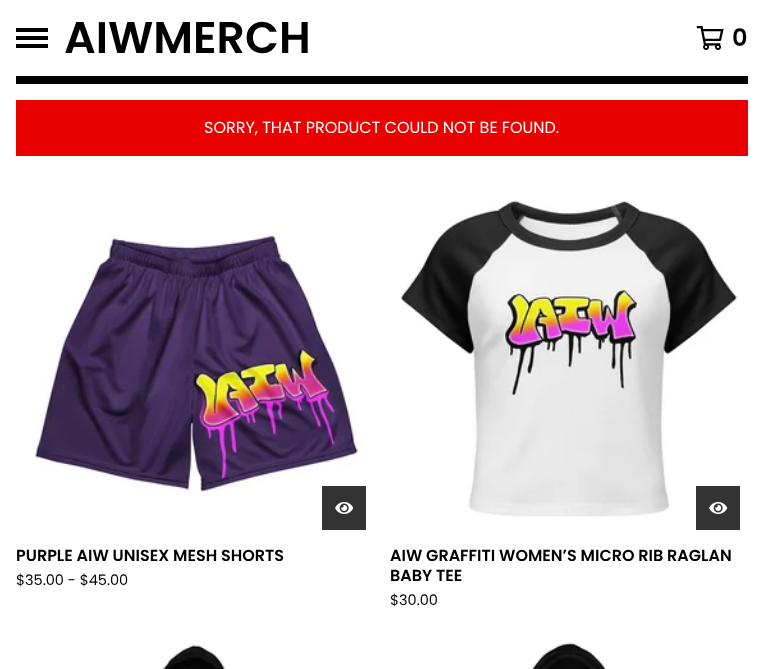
<svg xmlns="http://www.w3.org/2000/svg" width="764" height="669" viewBox="0 0 764 669">
  <rect width="100%" height="100%" fill="#ffffff"/>
  <rect x="16" y="76" width="732" height="8" fill="#000000"/>
  <rect x="16" y="36" width="32" height="4" fill="#000000"/>
  <rect x="16" y="28" width="32" height="4" fill="#000000"/>
  <rect x="16" y="44" width="32" height="4" fill="#000000"/>
  <text x="64" y="53" font-family="Poppins" font-size="44.25" font-weight="600" fill="#000000">AIWMERCH</text>
  <image x="696" y="26" width="28" height="24" href="img1.png"/>
  <text x="732" y="46" font-family="Poppins" font-size="24" font-weight="600" fill="#000000">0</text>
  <rect x="16" y="100" width="732" height="56" fill="#eb0000"/>
  <text x="204" y="133" font-family="Poppins" font-size="16" fill="#ffffff">SORRY, THAT PRODUCT COULD NOT BE FOUND.</text>
  <image x="35" y="234" width="329" height="263" href="img2.png"/>
  <rect x="322" y="486" width="44" height="44" fill="#333333"/>
  <image x="335" y="502" width="19" height="12" href="img3.png"/>
  <text x="16" y="561" font-family="Poppins" font-size="16" font-weight="600" fill="#000000">PURPLE AIW UNISEX MESH SHORTS</text>
  <text x="16" y="585" font-family="Poppins" font-size="14.5" fill="#000000">$35.00 - $45.00</text>
  <image x="400" y="200" width="337" height="317" href="img4.png"/>
  <rect x="696" y="486" width="44" height="44" fill="#333333"/>
  <image x="709" y="502" width="19" height="12" href="img3.png"/>
  <text x="390" y="561" font-family="Poppins" font-size="16" font-weight="600" fill="#000000">AIW GRAFFITI WOMEN’S MICRO RIB RAGLAN</text>
  <text x="390" y="581" font-family="Poppins" font-size="16" font-weight="600" fill="#000000">BABY TEE</text>
  <text x="390" y="605" font-family="Poppins" font-size="14.5" fill="#000000">$30.00</text>
  <image x="162" y="644" width="64" height="25" href="img5.png"/>
  <image x="531" y="639" width="76" height="30" href="img6.png"/>
</svg>
